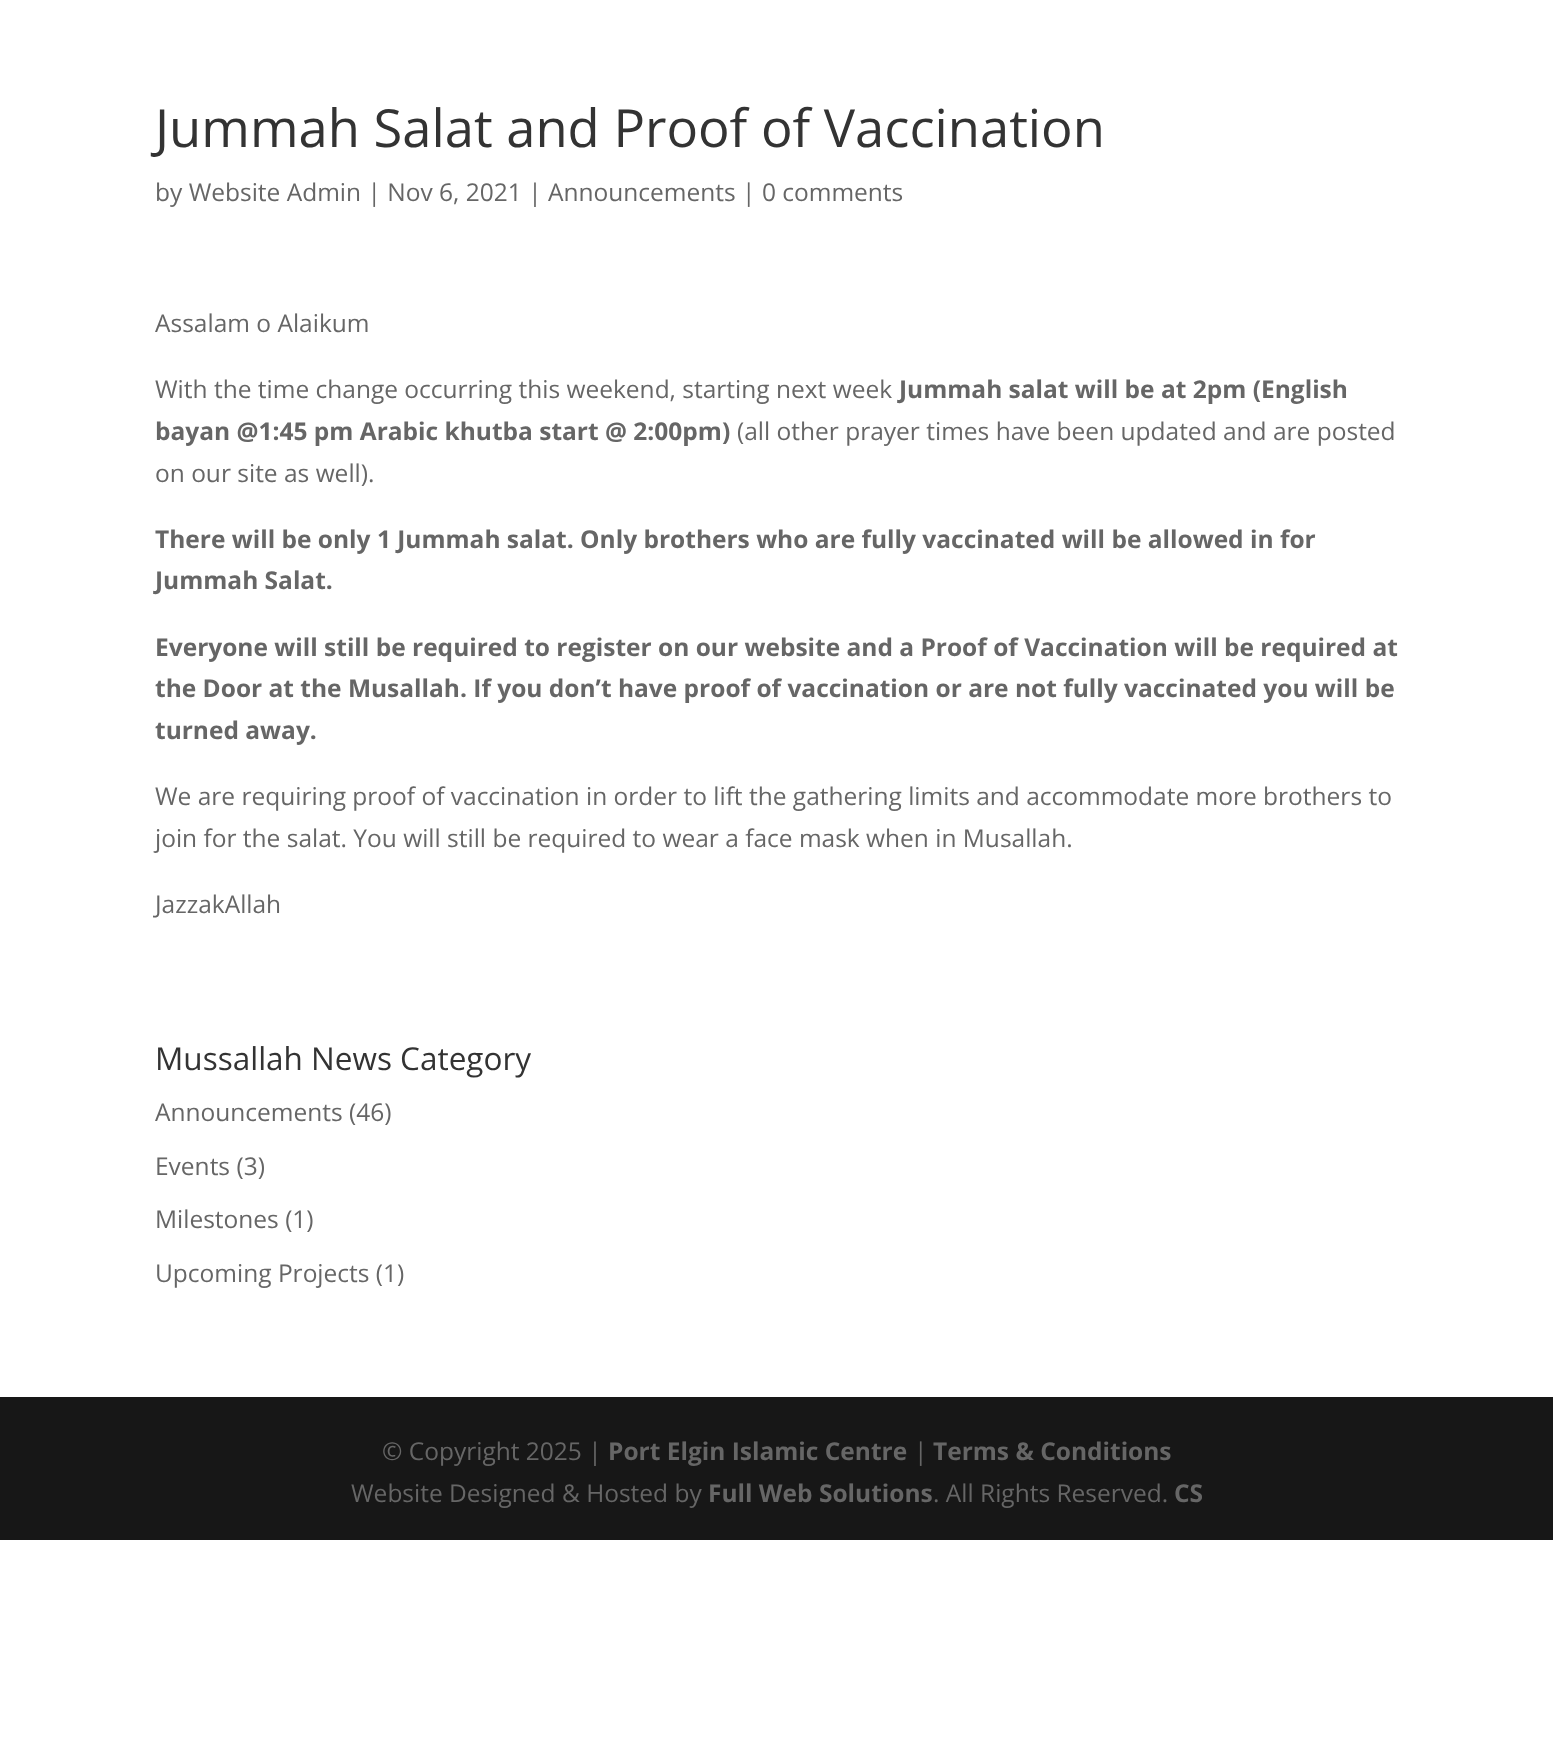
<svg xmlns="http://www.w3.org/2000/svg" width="1553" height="1738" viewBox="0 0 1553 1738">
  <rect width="100%" height="100%" fill="#ffffff"/>
  <text x="155" y="147" font-family="Open Sans" font-size="52.5" fill="#333333">Jummah Salat and Proof of Vaccination</text>
  <text x="155" y="201" font-family="Open Sans" font-size="24.5" fill="#666666">by Website Admin | Nov 6, 2021 | Announcements | 0 comments</text>
  <text x="155" y="332" font-family="Open Sans" font-size="24.5" fill="#666666">Assalam o Alaikum</text>
  <text x="155" y="398" font-family="Open Sans" font-size="24.5" fill="#666666">With the time change occurring this weekend, starting next week</text>
  <text x="899" y="398" font-family="Open Sans" font-size="24.5" font-weight="bold" fill="#666666">Jummah salat will be at 2pm (English</text>
  <text x="155" y="440" font-family="Open Sans" font-size="24.5" font-weight="bold" fill="#666666">bayan @1:45 pm Arabic khutba start @ 2:00pm)</text>
  <text x="737" y="440" font-family="Open Sans" font-size="24.5" fill="#666666">(all other prayer times have been updated and are posted</text>
  <text x="155" y="482" font-family="Open Sans" font-size="24.5" fill="#666666">on our site as well).</text>
  <text x="155" y="548" font-family="Open Sans" font-size="24.5" font-weight="bold" fill="#666666">There will be only 1 Jummah salat. Only brothers who are fully vaccinated will be allowed in for</text>
  <text x="155" y="589" font-family="Open Sans" font-size="24.5" font-weight="bold" fill="#666666">Jummah Salat.</text>
  <text x="155" y="656" font-family="Open Sans" font-size="24.5" font-weight="bold" fill="#666666">Everyone will still be required to register on our website and a Proof of Vaccination will be required at</text>
  <text x="155" y="697" font-family="Open Sans" font-size="24.5" font-weight="bold" fill="#666666">the Door at the Musallah. If you don’t have proof of vaccination or are not fully vaccinated you will be</text>
  <text x="155" y="739" font-family="Open Sans" font-size="24.5" font-weight="bold" fill="#666666">turned away.</text>
  <text x="155" y="805" font-family="Open Sans" font-size="24.5" fill="#666666">We are requiring proof of vaccination in order to lift the gathering limits and accommodate more brothers to</text>
  <text x="155" y="847" font-family="Open Sans" font-size="24.5" fill="#666666">join for the salat. You will still be required to wear a face mask when in Musallah.</text>
  <text x="155" y="913" font-family="Open Sans" font-size="24.5" fill="#666666">JazzakAllah</text>
  <text x="155" y="1070" font-family="Open Sans" font-size="31.5" fill="#333333">Mussallah News Category</text>
  <text x="155" y="1121" font-family="Open Sans" font-size="24.5" fill="#666666">Announcements (46)</text>
  <text x="155" y="1175" font-family="Open Sans" font-size="24.5" fill="#666666">Events (3)</text>
  <text x="155" y="1228" font-family="Open Sans" font-size="24.5" fill="#666666">Milestones (1)</text>
  <text x="155" y="1282" font-family="Open Sans" font-size="24.5" fill="#666666">Upcoming Projects (1)</text>
  <rect x="0" y="1397" width="1553" height="143" fill="#171717"/>
  <text x="382" y="1460" font-family="Open Sans" font-size="24.5" fill="#666666">© Copyright 2025 |</text>
  <text x="608" y="1460" font-family="Open Sans" font-size="24.5" font-weight="bold" fill="#666666">Port Elgin Islamic Centre</text>
  <text x="914" y="1460" font-family="Open Sans" font-size="24.5" fill="#666666">|</text>
  <text x="933" y="1460" font-family="Open Sans" font-size="24.5" font-weight="bold" fill="#666666">Terms &amp; Conditions</text>
  <text x="351" y="1502" font-family="Open Sans" font-size="24.5" fill="#666666">Website Designed &amp; Hosted by</text>
  <text x="708" y="1502" font-family="Open Sans" font-size="24.5" font-weight="bold" fill="#666666">Full Web Solutions</text>
  <text x="933" y="1502" font-family="Open Sans" font-size="24.5" fill="#666666">. All Rights Reserved.</text>
  <text x="1174" y="1502" font-family="Open Sans" font-size="24.5" font-weight="bold" fill="#666666">CS</text>
</svg>
